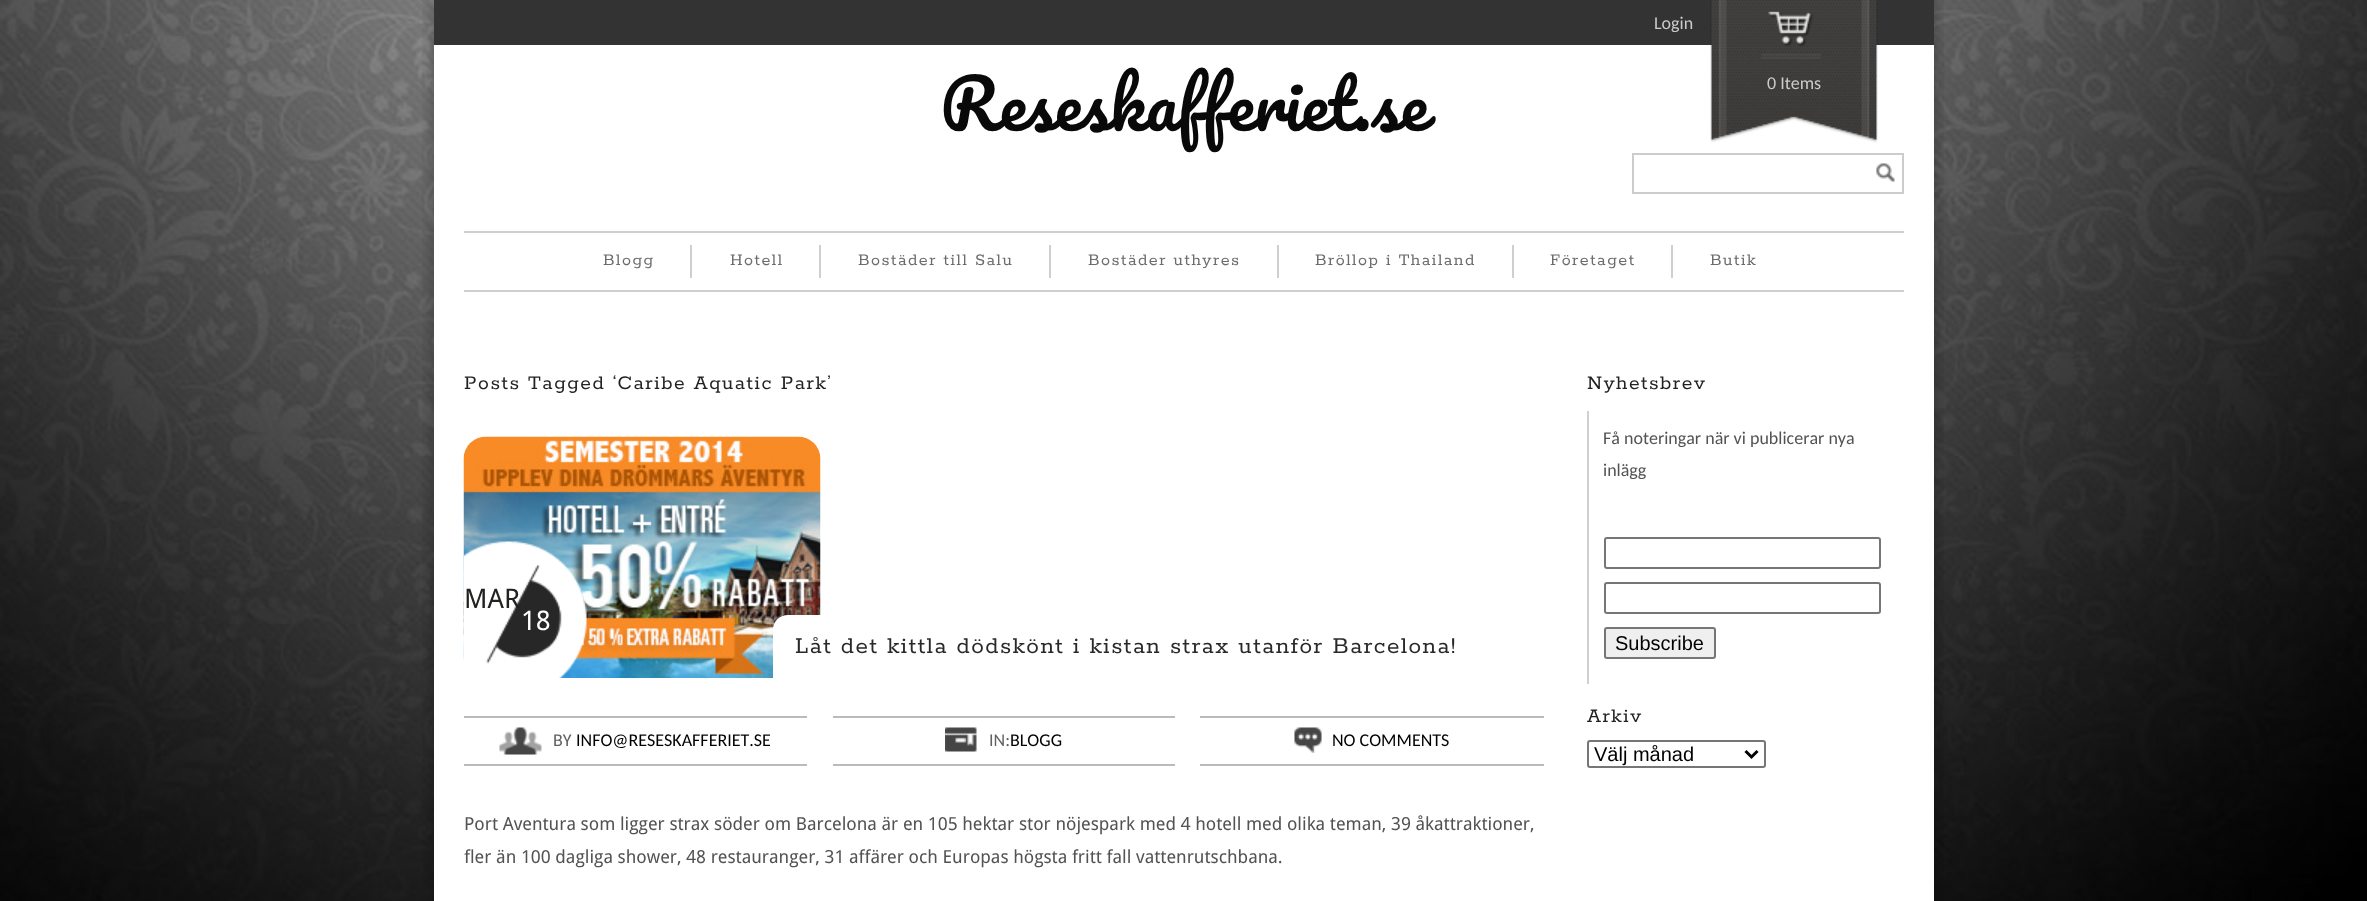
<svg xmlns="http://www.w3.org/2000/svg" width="2367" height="901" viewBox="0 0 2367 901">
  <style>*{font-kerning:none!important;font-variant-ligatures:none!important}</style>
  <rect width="100%" height="100%" fill="#ffffff"/>
  <image x="0" y="0" width="2367" height="901" href="img1.png"/>
  <image x="422" y="0" width="1522" height="901" href="img2.png"/>
  <rect x="434" y="45" width="1500" height="856" fill="#ffffff"/>
  <rect x="434" y="0" width="1500" height="45" fill="#333333"/>
  <text x="1654" y="29" font-family="Carlito" font-size="18" fill="#cccaca">Login</text>
  <image x="1710" y="0" width="168" height="143" href="img3.png"/>
  <text x="1767" y="89" font-family="Carlito" font-size="18" fill="#cccaca">0 Items</text>
  <text x="940" y="131" font-family="Pacifico" font-size="67.5" fill="#090909">Reseskafferiet.se</text>
  <rect x="1633" y="154" width="270" height="39" fill="none" stroke="#cccccc" stroke-width="2"/>
  <image x="1876" y="163" width="19" height="19" href="img4.png"/>
  <rect x="464" y="231" width="1440" height="2" fill="#cfcfcf"/>
  <rect x="464" y="290" width="1440" height="2" fill="#cfcfcf"/>
  <text x="603" y="265" font-family="Rokkitt" font-size="18" font-weight="600" letter-spacing="1.5" fill="#6c6c6c">Blogg</text>
  <rect x="690" y="245" width="2" height="33" fill="#cfcfcf"/>
  <text x="730" y="265" font-family="Rokkitt" font-size="18" font-weight="600" letter-spacing="1.5" fill="#6c6c6c">Hotell</text>
  <rect x="819" y="245" width="2" height="33" fill="#cfcfcf"/>
  <text x="858" y="265" font-family="Rokkitt" font-size="18" font-weight="600" letter-spacing="1.5" fill="#6c6c6c">Bostäder till Salu</text>
  <rect x="1049" y="245" width="2" height="33" fill="#cfcfcf"/>
  <text x="1088" y="265" font-family="Rokkitt" font-size="18" font-weight="600" letter-spacing="1.5" fill="#6c6c6c">Bostäder uthyres</text>
  <rect x="1277" y="245" width="2" height="33" fill="#cfcfcf"/>
  <text x="1315" y="265" font-family="Rokkitt" font-size="18" font-weight="600" letter-spacing="1.5" fill="#6c6c6c">Bröllop i Thailand</text>
  <rect x="1512" y="245" width="2" height="33" fill="#cfcfcf"/>
  <text x="1550" y="265" font-family="Rokkitt" font-size="18" font-weight="600" letter-spacing="1.5" fill="#6c6c6c">Företaget</text>
  <rect x="1671" y="245" width="2" height="33" fill="#cfcfcf"/>
  <text x="1710" y="265" font-family="Rokkitt" font-size="18" font-weight="600" letter-spacing="1.5" fill="#6c6c6c">Butik</text>
  <text x="464" y="389" font-family="Rokkitt" font-size="21.6" font-weight="600" letter-spacing="1.5" fill="#232221">Posts Tagged ‘Caribe Aquatic Park’</text>
  <image x="463" y="436" width="358" height="242" href="img5.png"/>
  <image x="463" y="541" width="124" height="137" href="img6.png"/>
  <text x="464" y="608" font-family="Droid Sans" font-size="27" fill="#232221">MAR</text>
  <text x="521" y="630" font-family="Droid Sans" font-size="27" fill="#ffffff">18</text>
  <path d="M788 615H1544V678H773V630C773 621.5 779.5 615 788 615Z" fill="#ffffff"/>
  <text x="795" y="653" font-family="Rokkitt" font-size="25.2" font-weight="600" letter-spacing="1.5" fill="#2b2828">Låt det kittla dödskönt i kistan strax utanför Barcelona!</text>
  <rect x="464" y="716" width="343" height="2" fill="#bababa"/>
  <rect x="464" y="764" width="343" height="2" fill="#bababa"/>
  <image x="499" y="727" width="43" height="28" href="img7.png"/>
  <text x="553" y="746" font-family="Carlito" font-size="18" fill="#636060">BY</text>
  <text x="576" y="746" font-family="Carlito" font-size="18" fill="#000000">INFO@RESESKAFFERIET.SE</text>
  <rect x="833" y="716" width="342" height="2" fill="#bababa"/>
  <rect x="833" y="764" width="342" height="2" fill="#bababa"/>
  <image x="945" y="727" width="32" height="25" href="img8.png"/>
  <text x="989" y="746" font-family="Carlito" font-size="18" fill="#636060">IN:</text>
  <text x="1010" y="746" font-family="Carlito" font-size="18" fill="#000000">BLOGG</text>
  <rect x="1200" y="716" width="344" height="2" fill="#bababa"/>
  <rect x="1200" y="764" width="344" height="2" fill="#bababa"/>
  <image x="1294" y="727" width="28" height="26" href="img9.png"/>
  <text x="1332" y="746" font-family="Carlito" font-size="18" fill="#000000">NO COMMENTS</text>
  <text x="464" y="830" font-family="Droid Sans" font-size="18" fill="#545252">Port Aventura som ligger strax söder om Barcelona är en 105 hektar stor nöjespark med 4 hotell med olika teman, 39 åkattraktioner,</text>
  <text x="464" y="863" font-family="Droid Sans" font-size="18" fill="#545252">fler än 100 dagliga shower, 48 restauranger, 31 affärer och Europas högsta fritt fall vattenrutschbana.</text>
  <text x="1587" y="389" font-family="Rokkitt" font-size="21.6" font-weight="600" letter-spacing="1.5" fill="#232221">Nyhetsbrev</text>
  <rect x="1587" y="411" width="2" height="273" fill="#d1cfcf"/>
  <text x="1603" y="444" font-family="Carlito" font-size="18" fill="#545252">Få noteringar när vi publicerar nya</text>
  <text x="1603" y="476" font-family="Carlito" font-size="18" fill="#545252">inlägg</text>
  <rect x="1605" y="538" width="275" height="30" rx="2" fill="none" stroke="#767676" stroke-width="2"/>
  <rect x="1605" y="583" width="275" height="30" rx="2" fill="none" stroke="#767676" stroke-width="2"/>
  <rect x="1605" y="628" width="110" height="30" rx="2" fill="#efefef" stroke="#767676" stroke-width="2"/>
  <text x="1615" y="650" font-family="Liberation Sans" font-size="20" fill="#000000">Subscribe</text>
  <text x="1587" y="722" font-family="Rokkitt" font-size="21.6" font-weight="600" letter-spacing="1.5" fill="#232221">Arkiv</text>
  <rect x="1588" y="741" width="177" height="26" rx="2" fill="none" stroke="#767676" stroke-width="2"/>
  <path d="M1745.5 751L1751.5 757L1757.5 751" fill="none" stroke="#000000" stroke-width="3"/>
  <text x="1594" y="761" font-family="Liberation Sans" font-size="20" fill="#000000">Välj månad</text>
</svg>
